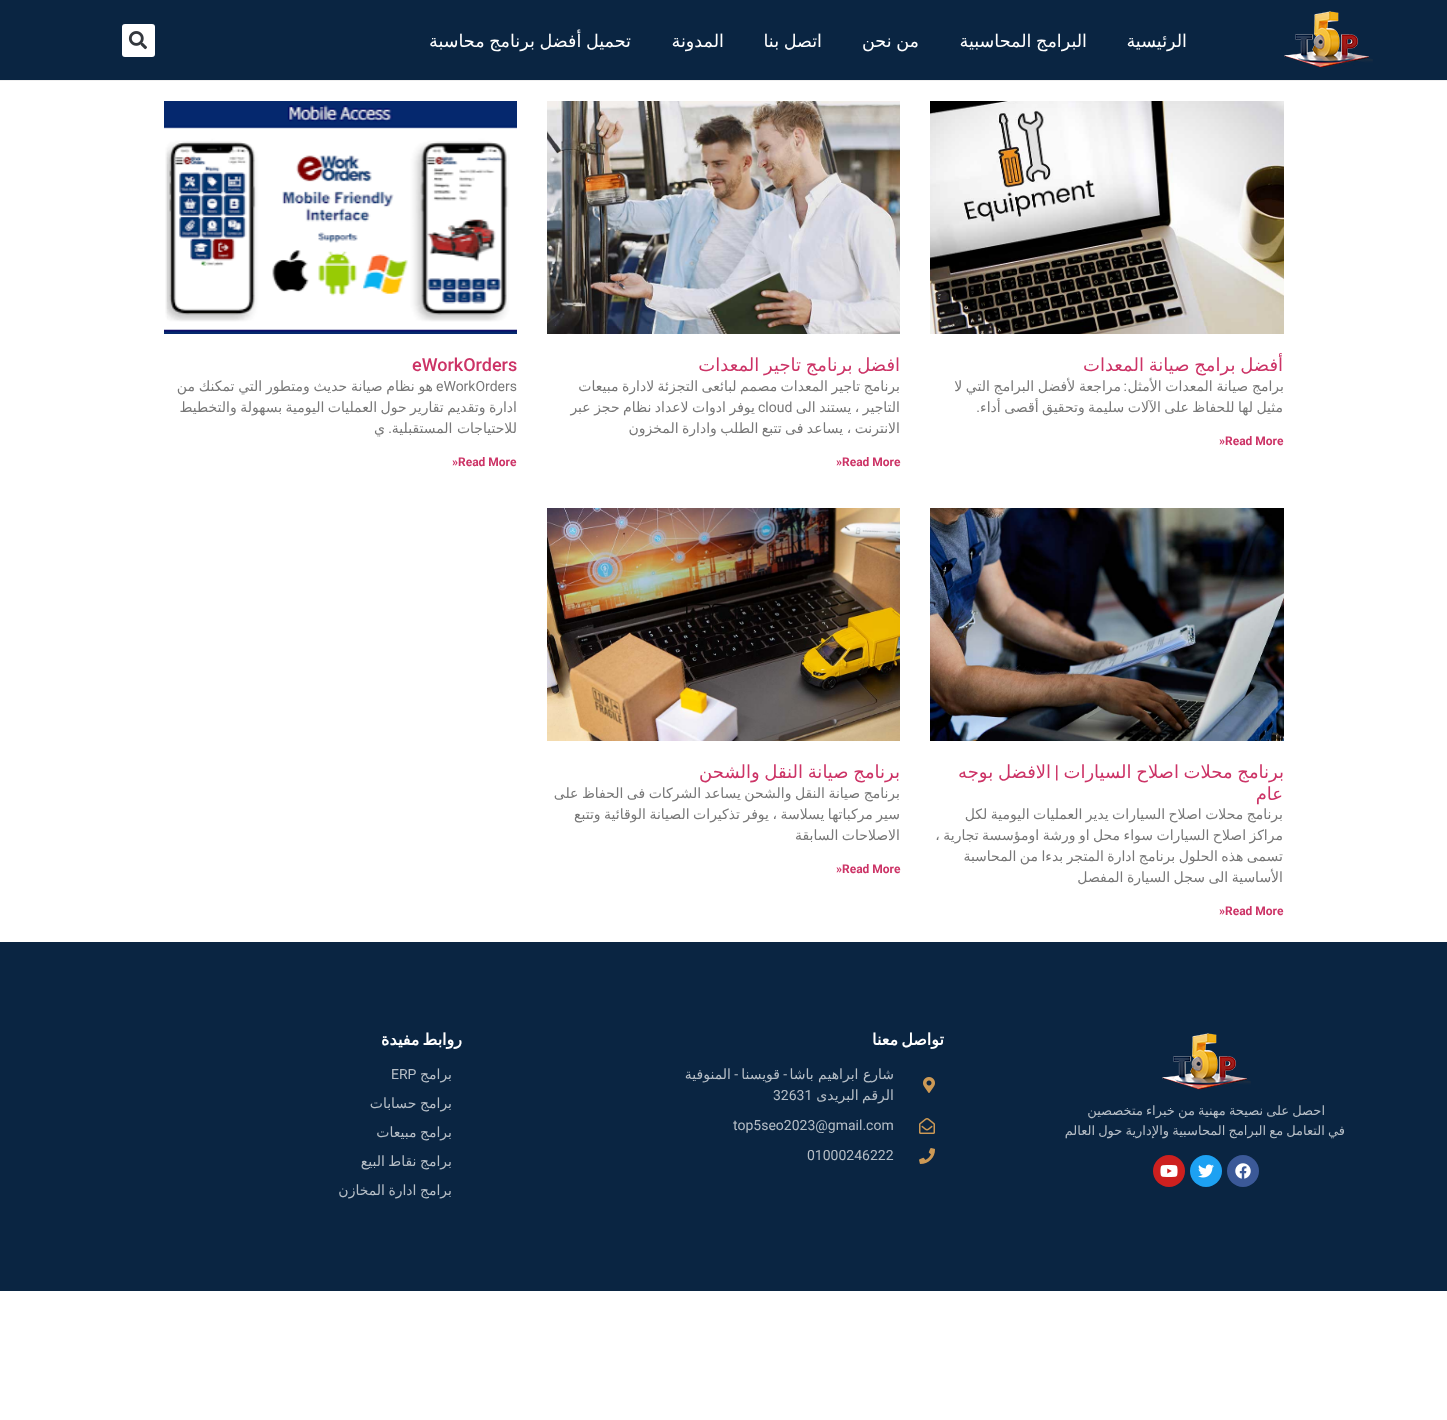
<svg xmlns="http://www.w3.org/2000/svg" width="1447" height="1420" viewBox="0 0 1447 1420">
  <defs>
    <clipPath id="clip1"><rect x="930" y="101" width="354" height="372"/></clipPath>
    <clipPath id="clip2"><rect x="547" y="101" width="353" height="372"/></clipPath>
    <clipPath id="clip3"><rect x="164" y="101" width="353" height="372"/></clipPath>
    <clipPath id="clip4"><rect x="930" y="508" width="354" height="414"/></clipPath>
    <clipPath id="clip5"><rect x="547" y="508" width="353" height="414"/></clipPath>
  </defs>
  <rect width="100%" height="100%" fill="#ffffff"/>
  <rect x="0" y="0" width="1447" height="80" fill="#0a2542"/>
  <rect x="0" y="80" width="1447" height="1" fill="#efefef"/>
  <image x="1284" y="11" width="89" height="57" href="img1.png"/>
  <text x="1187" y="47" font-family="DejaVu Sans" font-size="17.6" direction="rtl" fill="#ffffff">الرئيسية</text>
  <text x="1087" y="47" word-spacing="-1" font-family="DejaVu Sans" font-size="17.6" direction="rtl" fill="#ffffff">البرامج المحاسبية</text>
  <text x="919" y="47" word-spacing="-1" font-family="DejaVu Sans" font-size="17.6" direction="rtl" fill="#ffffff">من نحن</text>
  <text x="822" y="47" word-spacing="-1" font-family="DejaVu Sans" font-size="17.6" direction="rtl" fill="#ffffff">اتصل بنا</text>
  <text x="724" y="47" font-family="DejaVu Sans" font-size="17.6" direction="rtl" fill="#ffffff">المدونة</text>
  <text x="631" y="47" word-spacing="-1" font-family="DejaVu Sans" font-size="17.6" direction="rtl" fill="#ffffff">تحميل أفضل برنامج محاسبة</text>
  <rect x="122" y="24" width="33" height="33" rx="3" fill="#ffffff"/>
  <image x="128" y="31" width="19" height="19" href="img2.png"/>
  <image x="930" y="101" width="354" height="233" href="img3.png"/>
  <g clip-path="url(#clip1)">
    <text x="1283" y="371" word-spacing="-1" font-family="DejaVu Sans" font-size="18" direction="rtl" fill="#cc3366">أفضل برامج صيانة المعدات</text>
    <text x="1284" y="391" word-spacing="-0.75" font-family="DejaVu Sans" font-size="14" direction="rtl" fill="#777777">برامج صيانة المعدات الأمثل</text>
  </g>
  <text x="1127" y="391" font-family="Roboto" font-size="14" direction="rtl" fill="#777777">:</text>
  <text x="1121" y="391" word-spacing="-0.75" font-family="DejaVu Sans" font-size="14" direction="rtl" fill="#777777">مراجعة لأفضل البرامج التي لا</text>
  <g clip-path="url(#clip1)">
    <text x="1283" y="412" word-spacing="-1" font-family="DejaVu Sans" font-size="14" direction="rtl" fill="#777777">مثيل لها للحفاظ على الآلات سليمة وتحقيق أقصى أداء</text>
  </g>
  <text x="980" y="412" font-family="Roboto" font-size="14" direction="rtl" fill="#777777">.</text>
  <text x="1219" y="445" font-family="Roboto" font-size="12" font-weight="bold" fill="#cc3366">»Read More</text>
  <image x="547" y="101" width="353" height="233" href="img4.png"/>
  <g clip-path="url(#clip2)">
    <text x="900" y="371" word-spacing="-1" font-family="DejaVu Sans" font-size="18" direction="rtl" fill="#cc3366">افضل برنامج تاجير المعدات</text>
    <text x="900" y="391" word-spacing="-1" font-family="DejaVu Sans" font-size="14" direction="rtl" fill="#777777">برنامج تاجير المعدات مصمم لبائعى التجزئة لادارة مبيعات</text>
    <text x="900" y="412" word-spacing="-1" font-family="DejaVu Sans" font-size="14" direction="rtl" fill="#777777">التاجير ، يستند الى</text>
  </g>
  <text x="755" y="412" word-spacing="-1" font-family="DejaVu Sans" font-size="14" direction="rtl" fill="#777777">يوفر ادوات لاعداد نظام حجز عبر</text>
  <text x="758" y="412" font-family="Roboto" font-size="14" fill="#777777">cloud</text>
  <g clip-path="url(#clip2)">
    <text x="900" y="433" word-spacing="-1" font-family="DejaVu Sans" font-size="14" direction="rtl" fill="#777777">الانترنت ، يساعد فى تتبع الطلب وادارة المخزون</text>
  </g>
  <text x="836" y="466" font-family="Roboto" font-size="12" font-weight="bold" fill="#cc3366">»Read More</text>
  <image x="164" y="101" width="353" height="233" href="img5.png"/>
  <text x="412" y="371" font-family="Roboto" font-size="18" font-weight="500" fill="#cc3366">eWorkOrders</text>
  <text x="433" y="391" word-spacing="-0.75" font-family="DejaVu Sans" font-size="14" direction="rtl" fill="#777777">هو نظام صيانة حديث ومتطور التي تمكنك من</text>
  <text x="436" y="391" font-family="Roboto" font-size="14" fill="#777777">eWorkOrders</text>
  <g clip-path="url(#clip3)">
    <text x="517" y="412" word-spacing="-1" font-family="DejaVu Sans" font-size="14" direction="rtl" fill="#777777">ادارة وتقديم تقارير حول العمليات اليومية بسهولة والتخطيط</text>
  </g>
  <text x="517" y="433" font-family="DejaVu Sans" font-size="14" direction="rtl" fill="#777777">للاحتياجات المستقبلية</text>
  <text x="392" y="433" font-family="Roboto" font-size="14" direction="rtl" fill="#777777">.</text>
  <text x="385" y="433" font-family="DejaVu Sans" font-size="14" direction="rtl" fill="#777777">ي</text>
  <text x="452" y="466" font-family="Roboto" font-size="12" font-weight="bold" fill="#cc3366">»Read More</text>
  <image x="930" y="508" width="354" height="233" href="img6.png"/>
  <g clip-path="url(#clip4)">
    <text x="1284" y="778" word-spacing="-1" font-family="DejaVu Sans" font-size="18" direction="rtl" fill="#cc3366">برنامج محلات اصلاح السيارات</text>
  </g>
  <text x="1059" y="778" font-family="Roboto" font-size="18" font-weight="500" direction="rtl" fill="#cc3366">|</text>
  <text x="1051" y="778" word-spacing="-1" font-family="DejaVu Sans" font-size="18" direction="rtl" fill="#cc3366">الافضل بوجه</text>
  <text x="1283" y="800" font-family="DejaVu Sans" font-size="18" direction="rtl" fill="#cc3366">عام</text>
  <g clip-path="url(#clip4)">
    <text x="1283" y="819" word-spacing="-1" font-family="DejaVu Sans" font-size="14" direction="rtl" fill="#777777">برنامج محلات اصلاح السيارات يدير العمليات اليومية لكل</text>
    <text x="1283" y="840" word-spacing="-1" font-family="DejaVu Sans" font-size="14" direction="rtl" fill="#777777">مراكز اصلاح السيارات سواء محل او ورشة اومؤسسة تجارية ،</text>
    <text x="1283" y="861" word-spacing="-1" font-family="DejaVu Sans" font-size="14" direction="rtl" fill="#777777">تسمى هذه الحلول برنامج ادارة المتجر بدءا من المحاسبة</text>
    <text x="1283" y="882" word-spacing="-1" font-family="DejaVu Sans" font-size="14" direction="rtl" fill="#777777">الأساسية الى سجل السيارة المفصل</text>
  </g>
  <text x="1219" y="915" font-family="Roboto" font-size="12" font-weight="bold" fill="#cc3366">»Read More</text>
  <image x="547" y="508" width="353" height="233" href="img7.png"/>
  <g clip-path="url(#clip5)">
    <text x="900" y="778" word-spacing="-1" font-family="DejaVu Sans" font-size="18" direction="rtl" fill="#cc3366">برنامج صيانة النقل والشحن</text>
    <text x="900" y="798" word-spacing="-1" font-family="DejaVu Sans" font-size="14" direction="rtl" fill="#777777">برنامج صيانة النقل والشحن يساعد الشركات فى الحفاظ على</text>
    <text x="900" y="819" word-spacing="-1" font-family="DejaVu Sans" font-size="14" direction="rtl" fill="#777777">سير مركباتها يسلاسة ،</text>
  </g>
  <text x="769" y="819" word-spacing="-1" font-family="DejaVu Sans" font-size="14" direction="rtl" fill="#777777">يوفر تذكيرات الصيانة الوقائية وتتبع</text>
  <text x="900" y="840" word-spacing="-1" font-family="DejaVu Sans" font-size="14" direction="rtl" fill="#777777">الاصلاحات السابقة</text>
  <text x="836" y="873" font-family="Roboto" font-size="12" font-weight="bold" fill="#cc3366">»Read More</text>
  <rect x="0" y="942" width="1447" height="349" fill="#0a2542"/>
  <image x="1162" y="1033" width="89" height="57" href="img1.png"/>
  <text x="1325" y="1115" word-spacing="-1" font-family="DejaVu Sans" font-size="13" direction="rtl" fill="#b6bec6">احصل على نصيحة مهنية من خبراء متخصصين</text>
  <text x="1345" y="1135" word-spacing="-1" font-family="DejaVu Sans" font-size="13" direction="rtl" fill="#b6bec6">في التعامل مع البرامج المحاسبية والإدارية حول العالم</text>
  <circle cx="1243" cy="1171" r="16" fill="#3b5998"/>
  <image x="1235" y="1163" width="16" height="16" href="img8.png"/>
  <circle cx="1206" cy="1171" r="16" fill="#1da1f2"/>
  <image x="1198" y="1164" width="16" height="14" href="img9.png"/>
  <circle cx="1169" cy="1171" r="16" fill="#cd201f"/>
  <image x="1160" y="1165" width="18" height="12" href="img10.png"/>
  <text x="944" y="1045" word-spacing="-2" font-family="DejaVu Sans" font-size="16" font-weight="bold" letter-spacing="1" direction="rtl" fill="#ffffff">تواصل معنا</text>
  <image x="923" y="1077" width="12" height="16" href="img11.png"/>
  <text x="894" y="1079" font-family="DejaVu Sans" font-size="14" direction="rtl" fill="#b6bec6">شارع ابراهيم باشا</text>
  <text x="787" y="1079" font-family="Roboto" font-size="14" direction="rtl" fill="#b6bec6">-</text>
  <text x="780" y="1079" font-family="DejaVu Sans" font-size="14" direction="rtl" fill="#b6bec6">قويسنا</text>
  <text x="738" y="1079" font-family="Roboto" font-size="14" direction="rtl" fill="#b6bec6">-</text>
  <text x="731" y="1079" font-family="DejaVu Sans" font-size="14" direction="rtl" fill="#b6bec6">المنوفية</text>
  <text x="894" y="1100" word-spacing="-1" font-family="DejaVu Sans" font-size="14" direction="rtl" fill="#b6bec6">الرقم البريدى</text>
  <text x="773" y="1100" font-family="Roboto" font-size="14" fill="#b6bec6">32631</text>
  <image x="919" y="1118" width="16" height="16" href="img12.png"/>
  <text x="733" y="1130" font-family="Roboto" font-size="14" fill="#b6bec6">top5seo2023@gmail.com</text>
  <image x="919" y="1148" width="16" height="16" href="img13.png"/>
  <text x="807" y="1160" font-family="Roboto" font-size="14" fill="#b6bec6">01000246222</text>
  <text x="462" y="1045" word-spacing="-2" font-family="DejaVu Sans" font-size="16" font-weight="bold" letter-spacing="1" direction="rtl" fill="#ffffff">روابط مفيدة</text>
  <text x="452" y="1079" font-family="DejaVu Sans" font-size="14" direction="rtl" fill="#b6bec6">برامج</text>
  <text x="391" y="1079" font-family="Roboto" font-size="14" fill="#b6bec6">ERP</text>
  <text x="452" y="1108" word-spacing="-1" font-family="DejaVu Sans" font-size="14" direction="rtl" fill="#b6bec6">برامج حسابات</text>
  <text x="452" y="1137" word-spacing="-1" font-family="DejaVu Sans" font-size="14" direction="rtl" fill="#b6bec6">برامج مبيعات</text>
  <text x="452" y="1166" word-spacing="-1" font-family="DejaVu Sans" font-size="14" direction="rtl" fill="#b6bec6">برامج نقاط البيع</text>
  <text x="452" y="1195" word-spacing="-1" font-family="DejaVu Sans" font-size="14" direction="rtl" fill="#b6bec6">برامج ادارة المخازن</text>
</svg>
